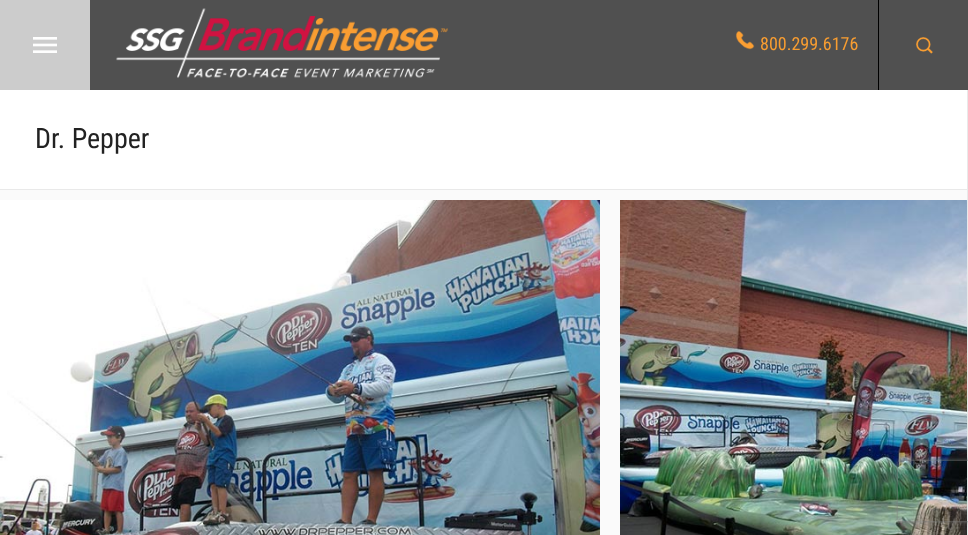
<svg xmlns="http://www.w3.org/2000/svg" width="968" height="535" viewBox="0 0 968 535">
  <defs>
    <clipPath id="clip1"><path d="M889 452H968V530H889ZM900 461H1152C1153 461 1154 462 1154 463V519C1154 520 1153 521 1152 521H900C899 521 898 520 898 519V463C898 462 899 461 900 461Z" clip-rule="evenodd"/></clipPath>
    <filter id="blur1" x="-50%" y="-200%" width="200%" height="500%"><feGaussianBlur stdDeviation="2.5"/></filter>
  </defs>
  <rect width="100%" height="100%" fill="#ffffff"/>
  <rect x="90" y="0" width="878" height="90" fill="#505050"/>
  <rect x="0" y="0" width="90" height="90" fill="#cccccc"/>
  <image x="33" y="37" width="24" height="16" href="img1.png"/>
  <image x="116" y="8" width="332" height="70" href="img2.png"/>
  <image x="735" y="31" width="20" height="19" href="img3.png"/>
  <text x="760" y="50" font-family="Roboto Condensed" font-size="18" fill="#f89d31">800.299.6176</text>
  <rect x="878" y="0" width="1" height="90" fill="#000000"/>
  <image x="916" y="37" width="17" height="17" href="img4.png"/>
  <rect x="967" y="90" width="1" height="445" fill="#e9e9e9"/>
  <rect x="0" y="189" width="967" height="1" fill="#e9e9e9"/>
  <text x="35" y="148" font-family="Roboto Condensed" font-size="28" fill="#222222">Dr. Pepper</text>
  <rect x="0" y="190" width="967" height="345" fill="#fafafa"/>
  <image x="0" y="200" width="600" height="335" href="img5.png"/>
  <image x="620" y="200" width="347" height="335" href="img6.png"/>
  <g clip-path="url(#clip1)">
    <rect x="898" y="461" width="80" height="60" rx="2" fill="#808080" filter="url(#blur1)"/>
  </g>
</svg>
